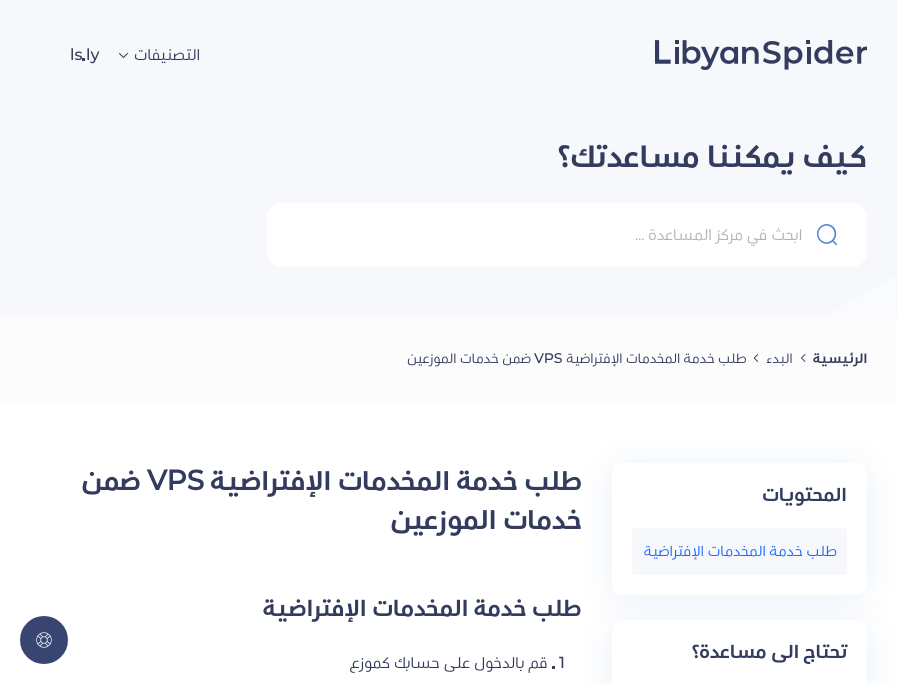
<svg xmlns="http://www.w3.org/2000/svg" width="897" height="684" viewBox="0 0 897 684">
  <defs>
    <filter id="blur1" x="-50%" y="-200%" width="200%" height="500%"><feGaussianBlur stdDeviation="15"/></filter>
  </defs>
  <rect width="100%" height="100%" fill="#ffffff"/>
  <rect x="0" y="0" width="897" height="317" fill="#f6f8fb"/>
  <image x="824" y="276" width="72" height="41" href="img1.png"/>
  <text x="70" y="60" font-family="Montserrat" font-size="16" font-weight="100" fill="#333c5e">ls</text>
  <text x="86" y="60" font-family="Montserrat" font-size="16" font-weight="100" fill="#333c5e">ly</text>
  <rect x="82" y="58" width="3" height="3" fill="#353e60"/>
  <image x="119" y="53" width="9" height="5" href="img2.png"/>
  <image x="134" y="49" width="65" height="15" href="img3.png"/>
  <image x="655" y="40" width="212" height="30" href="img4.png"/>
  <image x="558" y="144" width="308" height="31" href="img5.png"/>
  <rect x="267" y="203" width="600" height="64" rx="15" fill="#ffffff"/>
  <image x="635" y="228" width="167" height="18" href="img6.png"/>
  <image x="817" y="224" width="20" height="22" href="img7.png"/>
  <rect x="0" y="317" width="897" height="86" fill="#fcfcfc"/>
  <image x="407" y="353" width="124" height="14" href="img8.png"/>
  <text x="534" y="363" font-family="Montserrat" font-size="14" font-weight="100" fill="#333c5e">VPS</text>
  <image x="566" y="353" width="180" height="14" href="img9.png"/>
  <image x="753" y="354" width="6" height="8" href="img10.png"/>
  <image x="766" y="353" width="26" height="13" href="img11.png"/>
  <image x="801" y="354" width="5" height="8" href="img12.png"/>
  <image x="813" y="352" width="54" height="15" href="img13.png"/>
  <circle cx="44" cy="640" r="24" fill="#384571"/>
  <image x="36" y="632" width="16" height="16" href="img14.png"/>
  <image x="82" y="470" width="58" height="25" href="img15.png"/>
  <text x="147" y="490" font-family="Montserrat" font-size="28" font-weight="bold" fill="#333c5e">VPS</text>
  <image x="211" y="470" width="370" height="27" href="img16.png"/>
  <image x="391" y="509" width="190" height="27" href="img17.png"/>
  <rect x="612" y="466" width="255" height="132" rx="10" fill="#3566c8" fill-opacity="0.09" filter="url(#blur1)"/>
  <rect x="612" y="463" width="255" height="132" rx="10" fill="#ffffff"/>
  <rect x="612" y="623" width="255" height="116" rx="10" fill="#3566c8" fill-opacity="0.09" filter="url(#blur1)"/>
  <image x="263" y="599" width="318" height="23" href="img18.png"/>
  <image x="350" y="657" width="197" height="16" href="img19.png"/>
  <rect x="552" y="666" width="3" height="3" fill="#353e60"/>
  <text x="559" y="668" font-family="Montserrat" font-size="16" font-weight="100" fill="#333c5e">1</text>
  <image x="763" y="487" width="83" height="19" href="img20.png"/>
  <rect x="632" y="528" width="215" height="47" rx="3" fill="#f6f8fb"/>
  <image x="644" y="545" width="193" height="15" href="img21.png"/>
  <rect x="612" y="620" width="255" height="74" rx="10" fill="#ffffff"/>
  <image x="692" y="644" width="156" height="21" href="img22.png"/>
</svg>
